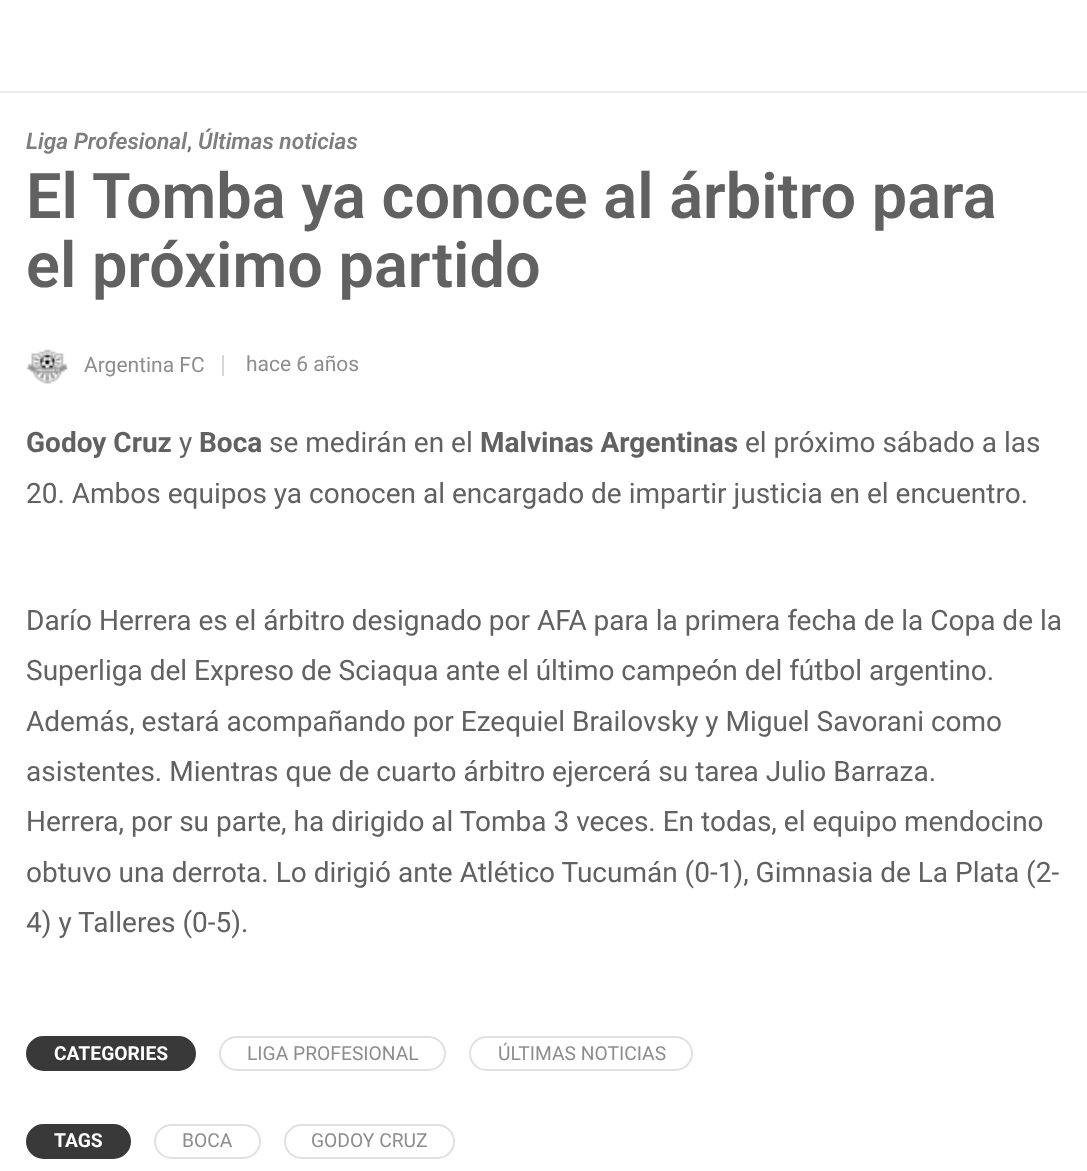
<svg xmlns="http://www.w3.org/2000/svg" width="1087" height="1171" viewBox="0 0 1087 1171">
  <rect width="100%" height="100%" fill="#ffffff"/>
  <rect x="0" y="91" width="1087" height="2" fill="#ededed"/>
  <text x="26" y="149" font-family="Roboto" font-size="22.75" font-weight="600" font-style="italic" fill="#7e7e7e">Liga Profesional</text>
  <text x="187" y="149" font-family="Roboto" font-size="24" fill="#616161">,</text>
  <text x="198" y="149" font-family="Roboto" font-size="22.75" font-weight="600" font-style="italic" fill="#7e7e7e">Últimas noticias</text>
  <text x="26" y="218" font-family="Roboto" font-size="63" font-weight="600" fill="#616161">El Tomba ya conoce al árbitro para</text>
  <text x="26" y="287" font-family="Roboto" font-size="63" font-weight="600" fill="#616161">el próximo partido</text>
  <image x="26" y="349" width="42" height="35" href="img1.png"/>
  <text x="84" y="372" font-family="Roboto" font-size="21" fill="#8d8d8d">Argentina FC</text>
  <rect x="222" y="355" width="2" height="21" fill="#d6d6d6"/>
  <text x="246" y="371" font-family="Roboto" font-size="21" fill="#8d8d8d">hace 6 años</text>
  <text x="26" y="452" font-family="Roboto" font-size="28" font-weight="bold" fill="#616161">Godoy Cruz</text>
  <text x="179" y="452" font-family="Roboto" font-size="28" fill="#616161">y</text>
  <text x="199" y="452" font-family="Roboto" font-size="28" font-weight="bold" fill="#616161">Boca</text>
  <text x="269" y="452" font-family="Roboto" font-size="28" fill="#616161">se medirán en el</text>
  <text x="480" y="452" font-family="Roboto" font-size="28" font-weight="bold" fill="#616161">Malvinas Argentinas</text>
  <text x="745" y="452" font-family="Roboto" font-size="28" fill="#616161">el próximo sábado a las</text>
  <text x="26" y="503" font-family="Roboto" font-size="28" fill="#616161">20. Ambos equipos ya conocen al encargado de impartir justicia en el encuentro.</text>
  <text x="26" y="630" font-family="Roboto" font-size="28" fill="#616161">Darío Herrera es el árbitro designado por AFA para la primera fecha de la Copa de la</text>
  <text x="26" y="680" font-family="Roboto" font-size="28" fill="#616161">Superliga del Expreso de Sciaqua ante el último campeón del fútbol argentino.</text>
  <text x="26" y="731" font-family="Roboto" font-size="28" fill="#616161">Además, estará acompañando por Ezequiel Brailovsky y Miguel Savorani como</text>
  <text x="26" y="781" font-family="Roboto" font-size="28" fill="#616161">asistentes. Mientras que de cuarto árbitro ejercerá su tarea Julio Barraza.</text>
  <text x="26" y="831" font-family="Roboto" font-size="28" fill="#616161">Herrera, por su parte, ha dirigido al Tomba 3 veces. En todas, el equipo mendocino</text>
  <text x="26" y="882" font-family="Roboto" font-size="28" fill="#616161">obtuvo una derrota. Lo dirigió ante Atlético Tucumán (0-1), Gimnasia de La Plata (2-</text>
  <text x="26" y="932" font-family="Roboto" font-size="28" fill="#616161">4) y Talleres (0-5).</text>
  <rect x="27" y="1037" width="168" height="33" rx="16.5" fill="#393939" stroke="#393939" stroke-width="2"/>
  <text x="54" y="1060" font-family="Roboto" font-size="19.25" font-weight="bold" fill="#ffffff">CATEGORIES</text>
  <rect x="220" y="1037" width="225" height="33" rx="16.5" fill="none" stroke="#e0e0e0" stroke-width="2"/>
  <text x="247" y="1060" font-family="Roboto" font-size="19.25" fill="#8d8d8d">LIGA PROFESIONAL</text>
  <rect x="470" y="1037" width="222" height="33" rx="16.5" fill="none" stroke="#e0e0e0" stroke-width="2"/>
  <text x="498" y="1060" font-family="Roboto" font-size="19.25" fill="#8d8d8d">ÚLTIMAS NOTICIAS</text>
  <rect x="27" y="1125" width="103" height="33" rx="16.5" fill="#393939" stroke="#393939" stroke-width="2"/>
  <text x="54" y="1147" font-family="Roboto" font-size="19.25" font-weight="bold" fill="#ffffff">TAGS</text>
  <rect x="155" y="1125" width="105" height="33" rx="16.5" fill="none" stroke="#e0e0e0" stroke-width="2"/>
  <text x="182" y="1147" font-family="Roboto" font-size="19.25" fill="#8d8d8d">BOCA</text>
  <rect x="285" y="1125" width="169" height="33" rx="16.5" fill="none" stroke="#e0e0e0" stroke-width="2"/>
  <text x="311" y="1147" font-family="Roboto" font-size="19.25" fill="#8d8d8d">GODOY CRUZ</text>
</svg>
